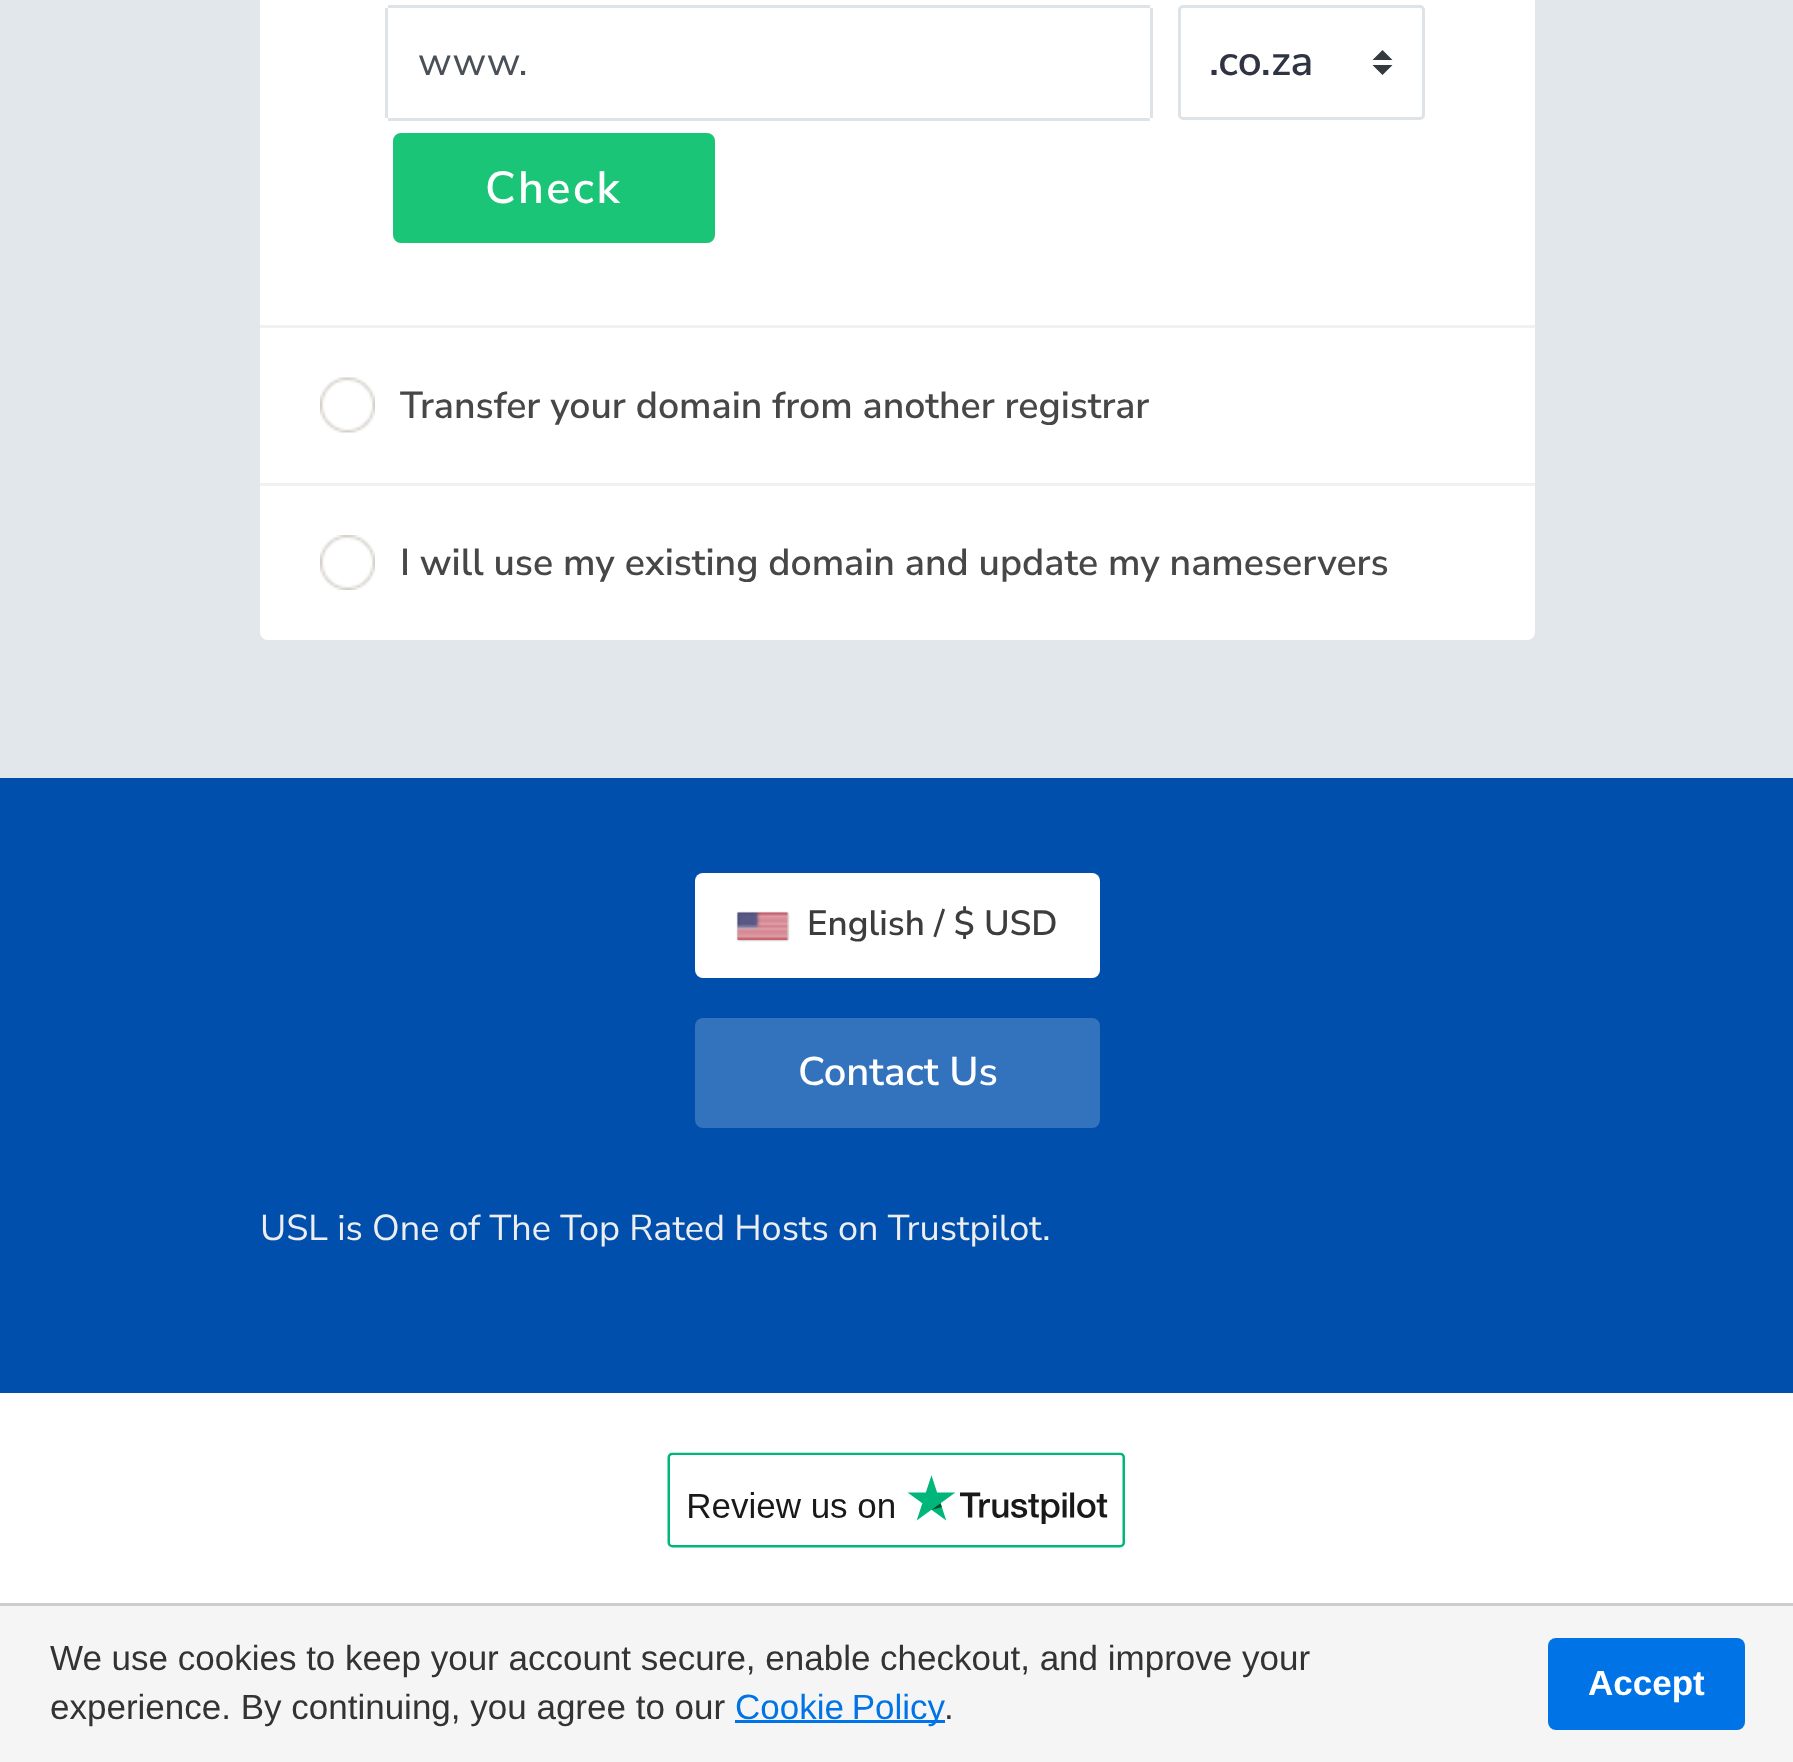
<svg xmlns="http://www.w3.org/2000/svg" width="1793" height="1762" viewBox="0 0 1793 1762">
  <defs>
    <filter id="blur1" x="-50%" y="-200%" width="200%" height="500%"><feGaussianBlur stdDeviation="1"/></filter>
  </defs>
  <rect width="100%" height="100%" fill="#ffffff"/>
  <rect x="0" y="0" width="1793" height="778" fill="#e2e7ec"/>
  <rect x="260" y="0" width="1275" height="325" fill="#ffffff"/>
  <rect x="388" y="5" width="762" height="3" fill="#dee3e8"/>
  <rect x="388" y="118" width="762" height="3" fill="#dee3e8"/>
  <rect x="385" y="8" width="3" height="110" fill="#dee3e8"/>
  <text x="418" y="75" font-family="Nunito Sans" font-size="40" fill="#495057">www.</text>
  <rect x="1150" y="8" width="3" height="110" fill="#dee3e8"/>
  <path d="M1382.5 50L1372.5 60H1392.5ZM1382.5 75L1372.5 65H1392.5Z" fill="#343a40"/>
  <rect x="1179.5" y="6.5" width="244" height="112" rx="3.5" fill="none" stroke="#dee3e8" stroke-width="3"/>
  <text x="1209" y="75" font-family="Nunito Sans" font-size="42.5" font-weight="600" fill="#2e3442">.co.za</text>
  <rect x="394.5" y="134.5" width="319" height="107" rx="6.5" fill="#1bc577" stroke="#1bc577" stroke-width="3"/>
  <text x="485" y="203" font-family="Nunito Sans" font-size="45" font-weight="600" letter-spacing="2.5" fill="#ffffff">Check</text>
  <rect x="260" y="328" width="1275" height="155" fill="#ffffff"/>
  <rect x="260" y="325" width="1275" height="3" fill="#f1f1f1"/>
  <image x="320" y="377" width="55" height="56" href="img1.png"/>
  <text x="400" y="418" font-family="Nunito Sans" font-size="37.5" font-weight="600" fill="#474747">Transfer your domain from another registrar</text>
  <path d="M260 483H1535V632C1535 636.5 1531.5 640 1527 640H268C263.5 640 260 636.5 260 632Z" fill="#ffffff"/>
  <rect x="260" y="483" width="1275" height="3" fill="#f1f1f1"/>
  <image x="320" y="535" width="55" height="55" href="img2.png"/>
  <text x="400" y="575" font-family="Nunito Sans" font-size="37.5" font-weight="600" fill="#474747">I will use my existing domain and update my nameservers</text>
  <rect x="0" y="778" width="1793" height="615" fill="#004fac"/>
  <rect x="695" y="873" width="405" height="105" rx="8" fill="#ffffff"/>
  <rect x="738" y="913" width="50" height="27" fill="#888888" filter="url(#blur1)"/>
  <rect x="787" y="913" width="1" height="27" fill="#dbdbdb"/>
  <image x="737" y="912" width="51" height="28" href="img3.png"/>
  <text x="807" y="935" font-family="Nunito Sans" font-size="35" font-weight="600" fill="#3d3d3d">English / $ USD</text>
  <rect x="695" y="1018" width="405" height="110" rx="8" fill="#3372bd"/>
  <text x="798" y="1085" font-family="Nunito Sans" font-size="40" font-weight="600" fill="#ffffff">Contact Us</text>
  <text x="260" y="1240" font-family="Nunito Sans" font-size="36" fill="#eeeeee">USL is One of The Top Rated Hosts on Trustpilot.</text>
  <image x="667" y="1452" width="458" height="96" href="img4.png"/>
  <rect x="0" y="1606" width="1793" height="156" fill="#f5f5f5"/>
  <rect x="0" y="1603" width="1793" height="3" fill="#cccccc"/>
  <text x="50" y="1670" font-family="Liberation Sans" font-size="35" fill="#333333">We use cookies to keep your account secure, enable checkout, and improve your</text>
  <text x="50" y="1719" font-family="Liberation Sans" font-size="35" fill="#333333">experience. By continuing, you agree to our</text>
  <rect x="735" y="1720" width="210" height="3" fill="#0073e6"/>
  <text x="735" y="1719" word-spacing="-2" font-family="Liberation Sans" font-size="35" fill="#0073e6">Cookie Policy</text>
  <text x="944" y="1719" font-family="Liberation Sans" font-size="35" fill="#333333">.</text>
  <rect x="1548" y="1638" width="197" height="92" rx="8" fill="#0073e6"/>
  <text x="1588" y="1695" font-family="Liberation Sans" font-size="35" font-weight="bold" fill="#ffffff">Accept</text>
</svg>
